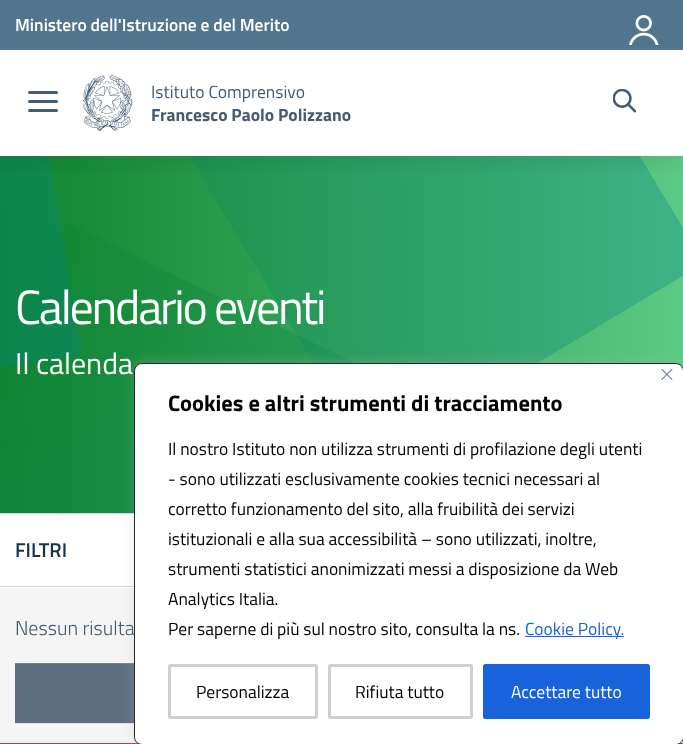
<svg xmlns="http://www.w3.org/2000/svg" width="683" height="744" viewBox="0 0 683 744">
  <defs>
    <linearGradient id="g1" gradientUnits="userSpaceOnUse" x1="0" y1="334" x2="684" y2="334"><stop offset="0" stop-color="#0f842e"/><stop offset="1" stop-color="#5cc984"/></linearGradient>
    <clipPath id="clip1"><rect x="0" y="156" width="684" height="357"/></clipPath>
    <linearGradient id="g2" gradientUnits="userSpaceOnUse" x1="65" y1="222" x2="319" y2="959"><stop offset="0" stop-color="#0f842e" stop-opacity="0.32"/><stop offset="1" stop-color="#00838f" stop-opacity="0.32"/></linearGradient>
    <linearGradient id="g3" gradientUnits="userSpaceOnUse" x1="-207" y1="264" x2="81" y2="355"><stop offset="0" stop-color="#0e8a5f" stop-opacity="0.32"/><stop offset="1" stop-color="#00838f" stop-opacity="0.32"/></linearGradient>
    <linearGradient id="g4" gradientUnits="userSpaceOnUse" x1="274" y1="296" x2="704" y2="263"><stop offset="0" stop-color="#0e8a5f" stop-opacity="0.32"/><stop offset="1" stop-color="#00838f" stop-opacity="0.32"/></linearGradient>
    <clipPath id="clip2"><rect x="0" y="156" width="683" height="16"/></clipPath>
    <filter id="blur1" x="-50%" y="-200%" width="200%" height="500%"><feGaussianBlur stdDeviation="15.5"/></filter>
    <filter id="blur2" x="-50%" y="-200%" width="200%" height="500%"><feGaussianBlur stdDeviation="0.5"/></filter>
    <filter id="blur3" x="-50%" y="-200%" width="200%" height="500%"><feGaussianBlur stdDeviation="6"/></filter>
  </defs>
  <rect width="100%" height="100%" fill="#ffffff"/>
  <rect x="0" y="156" width="683" height="357" fill="url(#g1)"/>
  <g clip-path="url(#clip1)">
    <path d="M561 463L65 222L-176 717L319 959Z" fill="url(#g2)" fill-rule="evenodd"/>
    <path d="M39 88L-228 130L-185 397L81 355Z" fill="url(#g3)" fill-rule="evenodd"/>
    <path d="M505-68L174 131L373 462L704 263Z" fill="url(#g4)" fill-rule="evenodd"/>
  </g>
  <g clip-path="url(#clip2)">
    <rect x="0" y="3" width="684" height="156" fill="#000000" fill-opacity="0.1" filter="url(#blur1)"/>
  </g>
  <rect x="0" y="0" width="683" height="50" fill="#51758d"/>
  <text x="15" y="31" font-family="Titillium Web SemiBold" font-size="17.5" font-weight="600" fill="#ffffff">Ministero dell'Istruzione e del Merito</text>
  <image x="629" y="15" width="30" height="30" href="img1.png"/>
  <rect x="28" y="100" width="30" height="3" rx="1.5" fill="#455b71"/>
  <rect x="28" y="91" width="30" height="3" rx="1.5" fill="#455b71"/>
  <rect x="28" y="109" width="30" height="3" rx="1.5" fill="#455b71"/>
  <image x="83" y="75" width="50" height="56" href="img2.png"/>
  <text x="151" y="98" font-family="Titillium Web" font-size="17.6" fill="#455b71">Istituto Comprensivo</text>
  <text x="151" y="121" font-family="Titillium Web" font-size="17.6" font-weight="bold" fill="#455b71">Francesco Paolo Polizzano</text>
  <image x="613" y="89" width="23" height="24" href="img3.png"/>
  <text x="15" y="324" font-family="Titillium Web" font-size="48" letter-spacing="-2.25" fill="#ffffff">Calendario eventi</text>
  <text x="15" y="374" font-family="Titillium Web" font-size="30" fill="#ffffff">Il calenda</text>
  <rect x="0" y="513" width="134" height="1" fill="#d1d6db"/>
  <rect x="0" y="586" width="134" height="1" fill="#d1d6db"/>
  <text x="15" y="557" font-family="Titillium Web SemiBold" font-size="20" font-weight="600" fill="#17324d">FILTRI</text>
  <rect x="0" y="588" width="683" height="155" fill="#f5f5f5"/>
  <text x="15" y="635" font-family="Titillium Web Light" font-size="20" font-weight="300" fill="#455b71">Nessun risulta</text>
  <rect x="15" y="664" width="654" height="60" fill="#000000" fill-opacity="0.07" filter="url(#blur2)"/>
  <rect x="15" y="664" width="119" height="59" fill="#5c6f82"/>
  <rect x="15" y="663" width="119" height="1" fill="#748595"/>
  <rect x="0" y="743" width="683" height="1" fill="#d1344c"/>
  <rect x="134" y="361" width="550" height="383" rx="8" fill="#acabab" fill-opacity="0.3" filter="url(#blur3)"/>
  <rect x="134.5" y="363.5" width="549" height="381" rx="7.5" fill="#ffffff" stroke="#2a2a2a"/>
  <image x="661" y="369" width="12" height="11" href="img4.png"/>
  <text x="168" y="411" font-family="Titillium Web" font-size="22.5" font-weight="bold" fill="#000000">Cookies e altri strumenti di tracciamento</text>
  <text x="168" y="455" font-family="Titillium Web" font-size="17.5" fill="#000000">Il nostro Istituto non utilizza strumenti di profilazione degli utenti</text>
  <text x="168" y="485" font-family="Titillium Web" font-size="17.5" fill="#000000">- sono utilizzati esclusivamente cookies tecnici necessari al</text>
  <text x="168" y="515" font-family="Titillium Web" font-size="17.5" fill="#000000">corretto funzionamento del sito, alla fruibilità dei servizi</text>
  <text x="168" y="545" font-family="Titillium Web" font-size="17.5" fill="#000000">istituzionali e alla sua accessibilità – sono utilizzati, inoltre,</text>
  <text x="168" y="575" font-family="Titillium Web" font-size="17.5" fill="#000000">strumenti statistici anonimizzati messi a disposizione da Web</text>
  <text x="168" y="605" font-family="Titillium Web" font-size="17.5" fill="#000000">Analytics Italia.</text>
  <text x="168" y="635" font-family="Titillium Web" font-size="17.5" fill="#000000">Per saperne di più sul nostro sito, consulta la ns.</text>
  <rect x="525" y="636" width="99" height="1" fill="#1863dc"/>
  <text x="525" y="635" font-family="Titillium Web" font-size="17.5" fill="#1863dc">Cookie Policy.</text>
  <rect x="169.5" y="665.5" width="147" height="52" rx="1" fill="none" stroke="#d0d0d0" stroke-width="3"/>
  <text x="196" y="698" font-family="Titillium Web" font-size="17.5" fill="#000000">Personalizza</text>
  <rect x="329.5" y="665.5" width="142" height="52" rx="1" fill="none" stroke="#d0d0d0" stroke-width="3"/>
  <text x="355" y="698" font-family="Titillium Web" font-size="17.5" fill="#000000">Rifiuta tutto</text>
  <rect x="484.5" y="665.5" width="164" height="52" rx="1" fill="#1863dc" stroke="#1863dc" stroke-width="3"/>
  <text x="511" y="698" font-family="Titillium Web" font-size="17.5" fill="#ffffff">Accettare tutto</text>
</svg>
